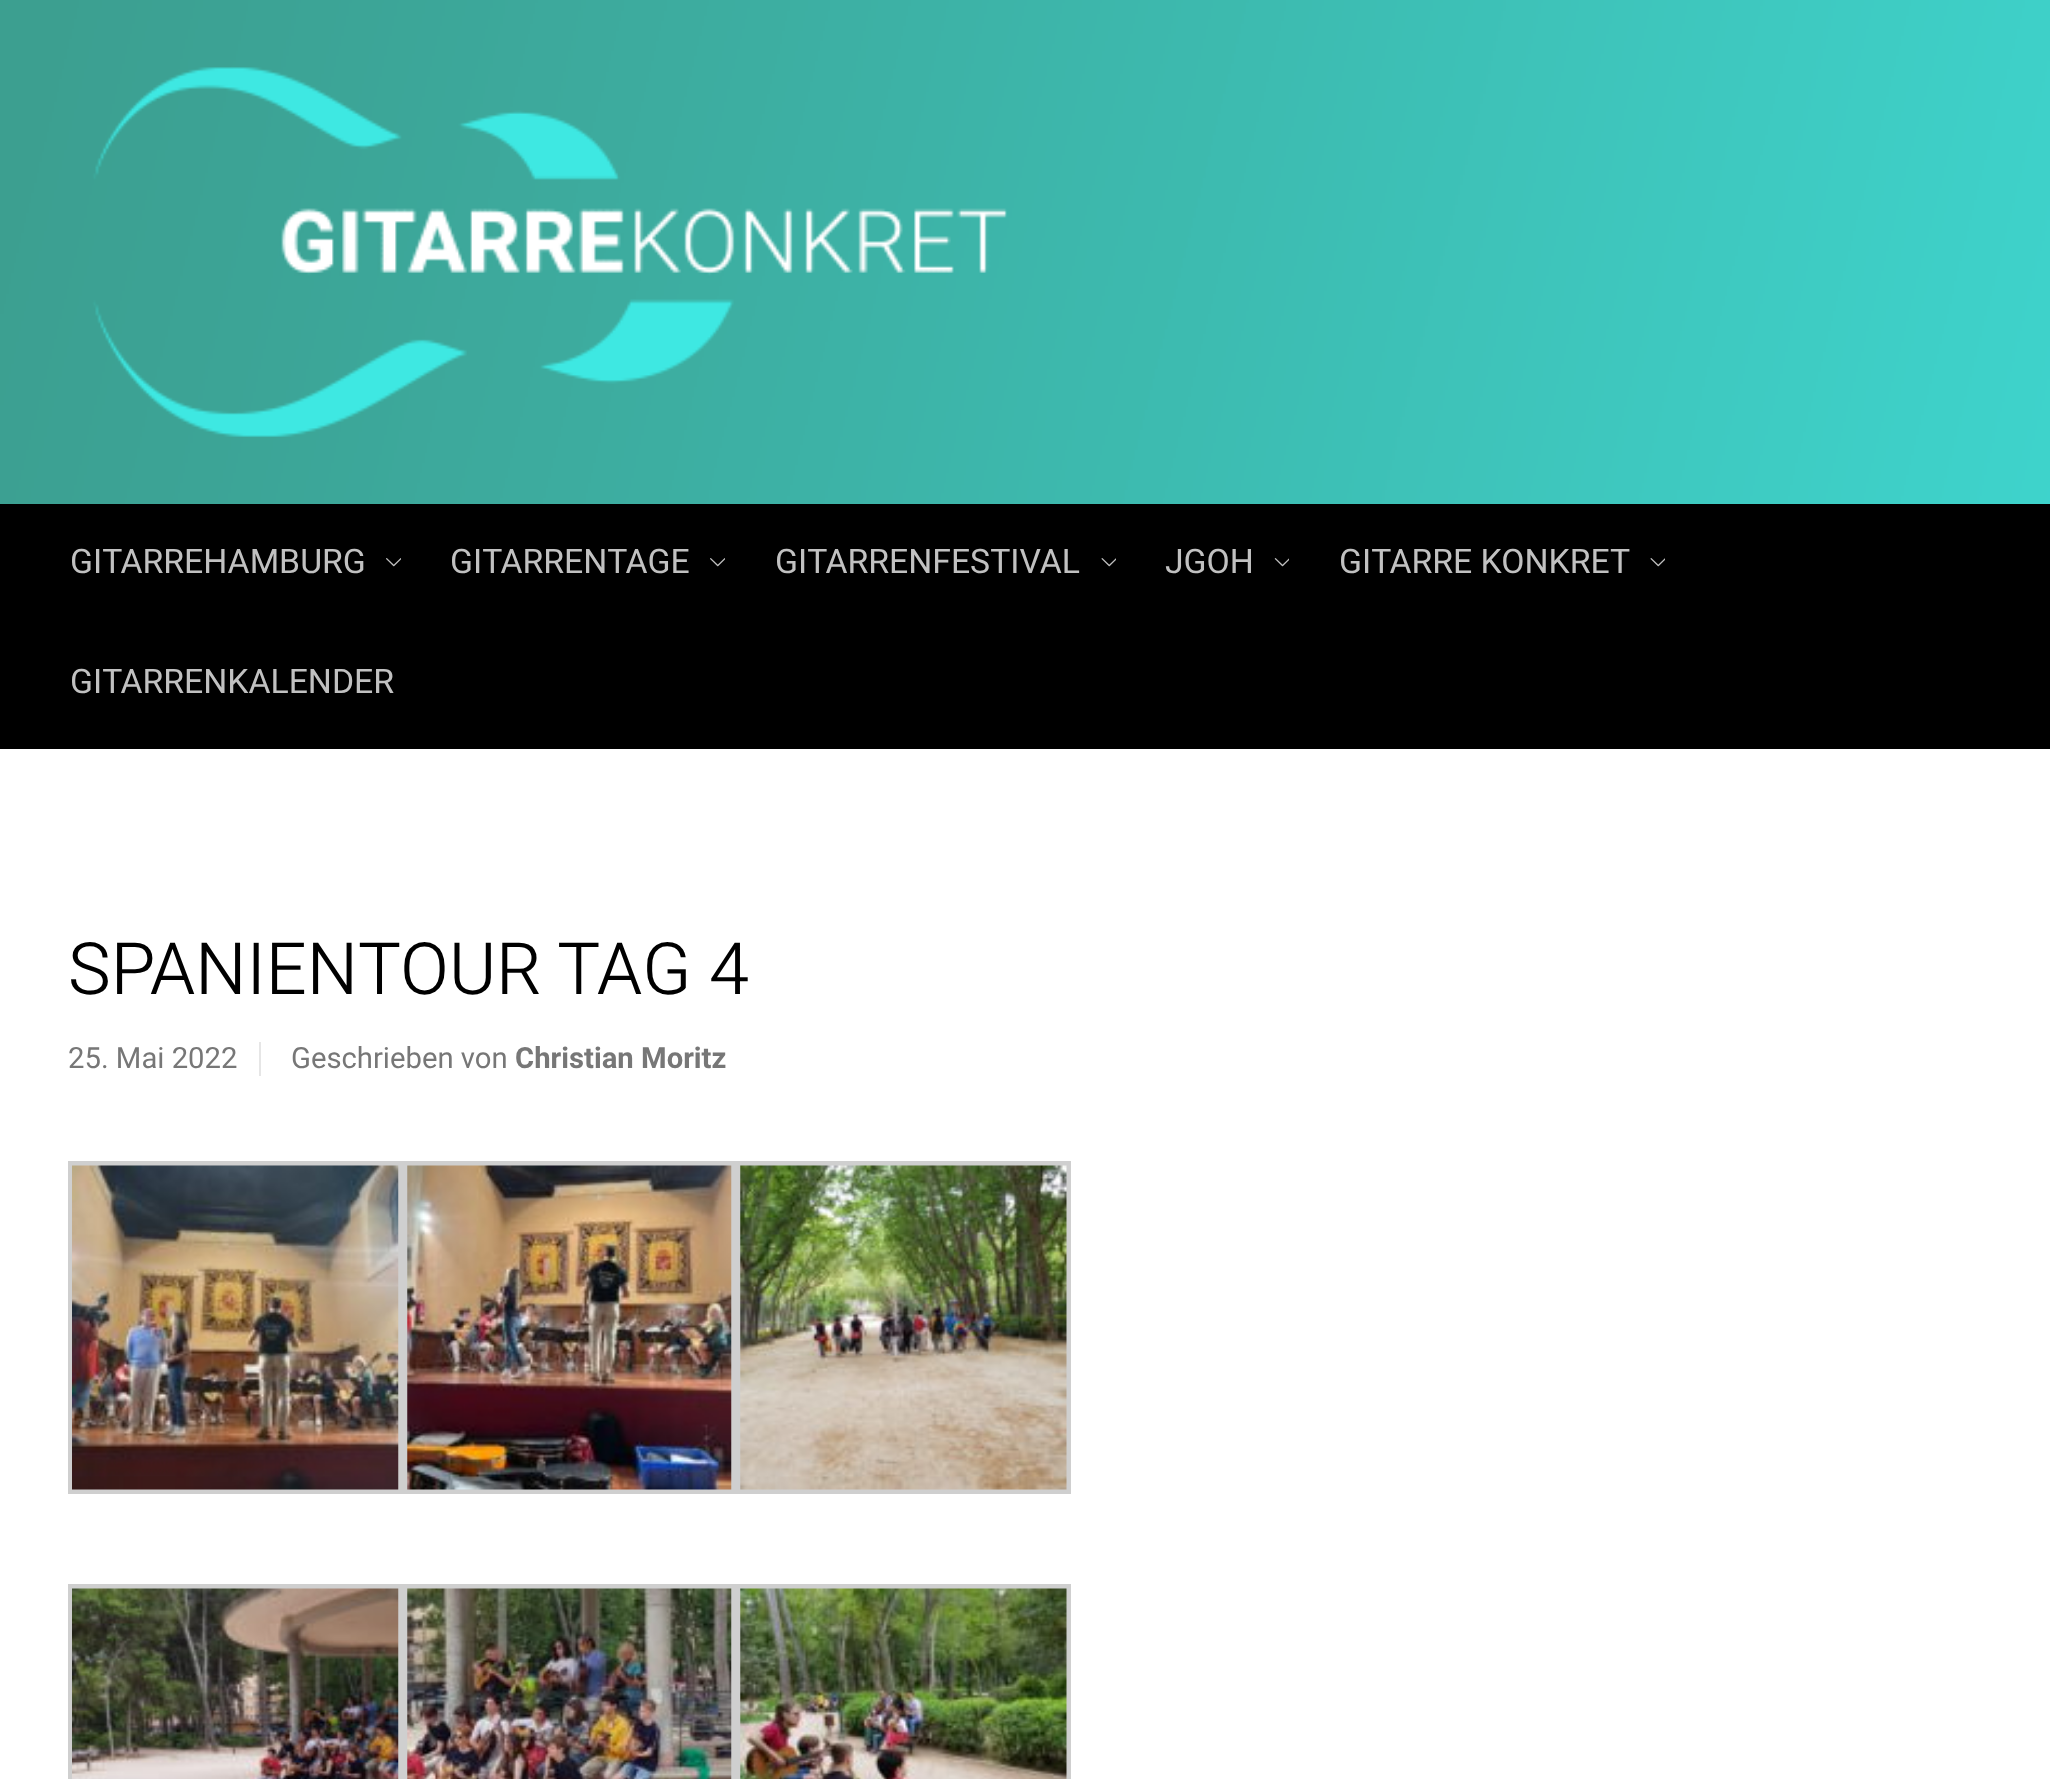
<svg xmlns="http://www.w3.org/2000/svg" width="2050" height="1779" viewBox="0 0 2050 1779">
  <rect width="100%" height="100%" fill="#ffffff"/>
  <image x="0" y="0" width="2050" height="504" href="img1.png"/>
  <rect x="0" y="504" width="2050" height="245" fill="#000000"/>
  <text x="70" y="573" font-family="Heebo" font-size="33.75" fill="#c1c1c1">GITARREHAMBURG</text>
  <image x="386" y="558" width="15" height="9" href="img2.png"/>
  <text x="450" y="573" font-family="Heebo" font-size="33.75" fill="#c1c1c1">GITARRENTAGE</text>
  <image x="710" y="558" width="15" height="9" href="img2.png"/>
  <text x="775" y="573" font-family="Heebo" font-size="33.75" fill="#c1c1c1">GITARRENFESTIVAL</text>
  <image x="1101" y="558" width="15" height="9" href="img3.png"/>
  <text x="1165" y="573" font-family="Heebo" font-size="33.75" fill="#c1c1c1">JGOH</text>
  <image x="1274" y="558" width="15" height="9" href="img4.png"/>
  <text x="1339" y="573" font-family="Heebo" font-size="33.75" fill="#c1c1c1">GITARRE KONKRET</text>
  <image x="1650" y="558" width="15" height="9" href="img3.png"/>
  <text x="70" y="693" font-family="Heebo" font-size="33.75" fill="#c1c1c1">GITARRENKALENDER</text>
  <text x="68" y="994" font-family="Heebo" font-size="72" font-weight="300" fill="#000000">SPANIENTOUR TAG 4</text>
  <text x="68" y="1068" font-family="Roboto" font-size="29.25" fill="#777777">25. Mai 2022</text>
  <rect x="259" y="1042" width="2" height="34" fill="#e6e6e6"/>
  <text x="291" y="1068" font-family="Roboto" font-size="29.25" fill="#777777">Geschrieben von</text>
  <text x="515" y="1068" font-family="Roboto" font-size="29.25" font-weight="bold" fill="#777777">Christian Moritz</text>
  <rect x="70.5" y="1163.5" width="330" height="328" fill="none" stroke="#cfcfcf" stroke-width="5"/>
  <image x="72" y="1165" width="327" height="325" href="img5.png"/>
  <rect x="405.5" y="1163.5" width="328" height="328" fill="none" stroke="#cfcfcf" stroke-width="5"/>
  <image x="407" y="1165" width="325" height="325" href="img6.png"/>
  <rect x="738.5" y="1163.5" width="330" height="328" fill="none" stroke="#cfcfcf" stroke-width="5"/>
  <image x="740" y="1165" width="327" height="325" href="img7.png"/>
  <rect x="70.5" y="1586.5" width="330" height="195" fill="none" stroke="#cfcfcf" stroke-width="5"/>
  <image x="72" y="1588" width="327" height="191" href="img8.png"/>
  <rect x="405.5" y="1586.5" width="328" height="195" fill="none" stroke="#cfcfcf" stroke-width="5"/>
  <image x="407" y="1588" width="325" height="191" href="img9.png"/>
  <rect x="738.5" y="1586.5" width="330" height="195" fill="none" stroke="#cfcfcf" stroke-width="5"/>
  <image x="740" y="1588" width="327" height="191" href="img10.png"/>
</svg>
